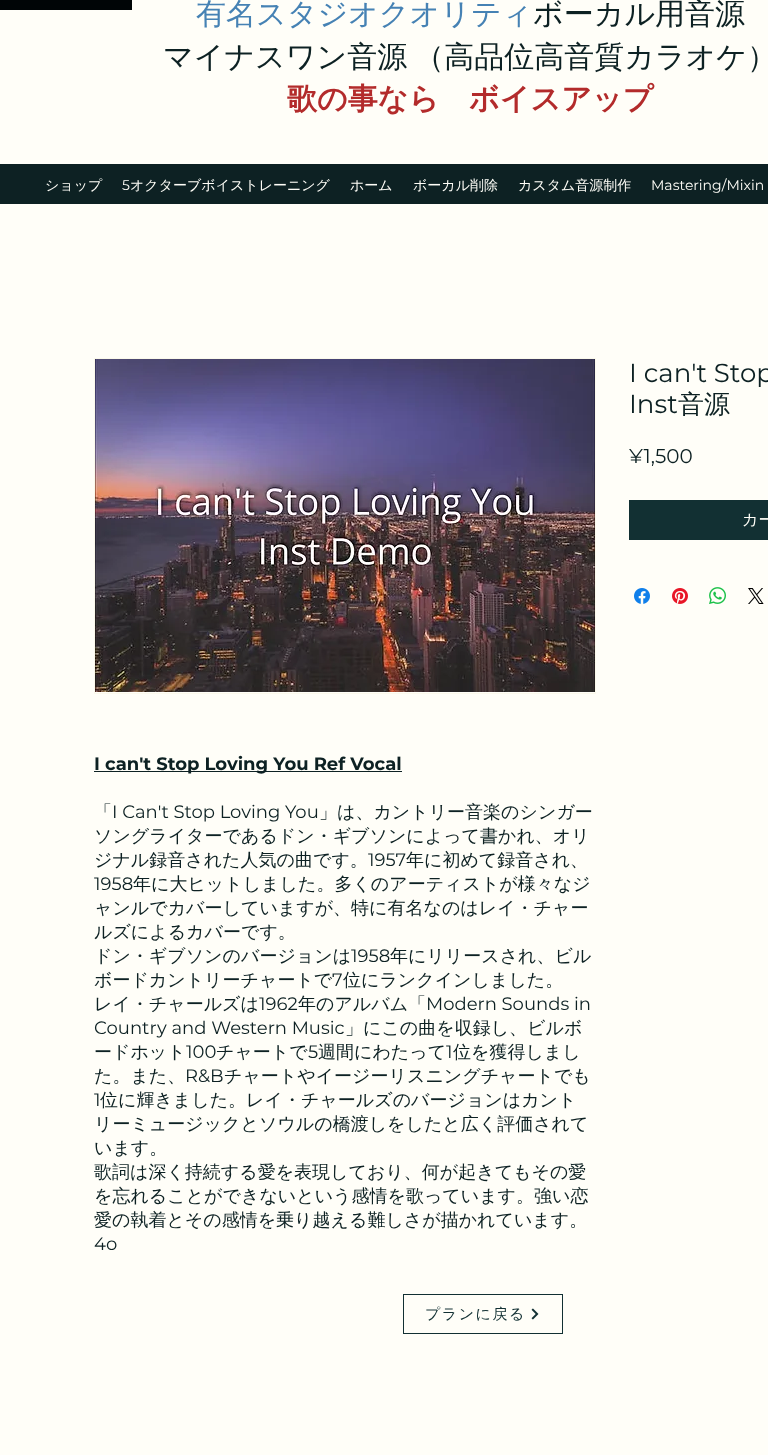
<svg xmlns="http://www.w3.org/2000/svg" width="768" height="1455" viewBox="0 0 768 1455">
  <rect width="100%" height="100%" fill="#fffef8"/>
  <rect x="0" y="0" width="132" height="10" fill="#000506"/>
  <text x="196" y="24" font-family="WenQuanYi Zen Hei" font-size="30" font-weight="500" fill="#4682b4">有名スタジオクオリティ</text>
  <text x="533" y="24" font-family="WenQuanYi Zen Hei" font-size="30" font-weight="500" fill="#0d2123">ボーカル用音源</text>
  <text x="163" y="67" word-spacing="-2" font-family="WenQuanYi Zen Hei" font-size="30" font-weight="500" fill="#0d2123">マイナスワン音源 （高品位高音質カラオケ）</text>
  <text x="287" y="109" font-family="WenQuanYi Zen Hei" font-size="30" font-weight="bold" fill="#b32b2b">歌の事なら　ボイスアップ</text>
  <rect x="0" y="164" width="768" height="40" fill="#0d2123"/>
  <text x="45" y="190" font-family="WenQuanYi Zen Hei" font-size="14" font-weight="500" fill="#fffef8">ショップ</text>
  <text x="122" y="190" font-family="Montserrat" font-size="14" fill="#fffef8">5</text>
  <text x="130" y="190" font-family="WenQuanYi Zen Hei" font-size="14" font-weight="500" fill="#fffef8">オクターブボイストレーニング</text>
  <text x="350" y="190" font-family="WenQuanYi Zen Hei" font-size="14" font-weight="500" fill="#fffef8">ホーム</text>
  <text x="413" y="190" font-family="WenQuanYi Zen Hei" font-size="14" font-weight="500" fill="#fffef8">ボーカル削除</text>
  <text x="518" y="190" font-family="WenQuanYi Zen Hei" font-size="14" font-weight="500" fill="#fffef8">カスタム音源制作</text>
  <text x="651" y="190" font-family="Montserrat" font-size="14" fill="#fffef8">Mastering/Mixin</text>
  <text x="629" y="382" font-family="Montserrat" font-size="26" fill="#0d2123">I can't Stop</text>
  <text x="629" y="413" font-family="Montserrat" font-size="26" fill="#0d2123">Inst</text>
  <text x="678" y="413" font-family="WenQuanYi Zen Hei" font-size="26" font-weight="500" fill="#0d2123">音源</text>
  <text x="629" y="463" font-family="Montserrat" font-size="20" fill="#0d2123">¥1,500</text>
  <rect x="629" y="500" width="139" height="40" fill="#123033"/>
  <text x="742" y="525" font-family="WenQuanYi Zen Hei" font-size="16" font-weight="500" fill="#fffef8">カー</text>
  <image x="634" y="588" width="16" height="16" href="img1.png"/>
  <image x="672" y="588" width="16" height="16" href="img2.png"/>
  <image x="709" y="587" width="17" height="17" href="img3.png"/>
  <image x="748" y="588" width="16" height="16" href="img4.png"/>
  <rect x="94.5" y="358.5" width="501" height="335" fill="none" stroke="#fbf9eb"/>
  <image x="95" y="359" width="500" height="333" href="img5.png"/>
  <rect x="94" y="771" width="308" height="1" fill="#0d2123"/>
  <text x="94" y="770" font-family="Montserrat" font-size="18" font-weight="bold" fill="#0d2123">I can't Stop Loving You Ref Vocal</text>
  <text x="94" y="818" font-family="WenQuanYi Zen Hei" font-size="18" font-weight="500" fill="#0d2123">「</text>
  <text x="112" y="818" font-family="Montserrat" font-size="18" fill="#0d2123">I Can't Stop Loving You</text>
  <text x="319" y="818" font-family="WenQuanYi Zen Hei" font-size="18" font-weight="500" fill="#0d2123">」は、カントリー音楽のシンガー</text>
  <text x="94" y="842" font-family="WenQuanYi Zen Hei" font-size="18" font-weight="500" fill="#0d2123">ソングライターであるドン・ギブソンによって書かれ、オリ</text>
  <text x="94" y="866" font-family="WenQuanYi Zen Hei" font-size="18" font-weight="500" fill="#0d2123">ジナル録音された人気の曲です。</text>
  <text x="368" y="866" font-family="Montserrat" font-size="18" fill="#0d2123">1957</text>
  <text x="406" y="866" font-family="WenQuanYi Zen Hei" font-size="18" font-weight="500" fill="#0d2123">年に初めて録音され、</text>
  <text x="94" y="890" font-family="Montserrat" font-size="18" fill="#0d2123">1958</text>
  <text x="133" y="890" font-family="WenQuanYi Zen Hei" font-size="18" font-weight="500" fill="#0d2123">年に大ヒットしました。多くのアーティストが様々なジ</text>
  <text x="94" y="914" font-family="WenQuanYi Zen Hei" font-size="18" font-weight="500" fill="#0d2123">ャンルでカバーしていますが、特に有名なのはレイ・チャー</text>
  <text x="94" y="938" font-family="WenQuanYi Zen Hei" font-size="18" font-weight="500" fill="#0d2123">ルズによるカバーです。</text>
  <text x="94" y="962" font-family="WenQuanYi Zen Hei" font-size="18" font-weight="500" fill="#0d2123">ドン・ギブソンのバージョンは</text>
  <text x="351" y="962" font-family="Montserrat" font-size="18" fill="#0d2123">1958</text>
  <text x="390" y="962" font-family="WenQuanYi Zen Hei" font-size="18" font-weight="500" fill="#0d2123">年にリリースされ、ビル</text>
  <text x="94" y="986" font-family="WenQuanYi Zen Hei" font-size="18" font-weight="500" fill="#0d2123">ボードカントリーチャートで</text>
  <text x="332" y="986" font-family="Montserrat" font-size="18" fill="#0d2123">7</text>
  <text x="343" y="986" font-family="WenQuanYi Zen Hei" font-size="18" font-weight="500" fill="#0d2123">位にランクインしました。</text>
  <text x="94" y="1010" font-family="WenQuanYi Zen Hei" font-size="18" font-weight="500" fill="#0d2123">レイ・チャールズは</text>
  <text x="259" y="1010" font-family="Montserrat" font-size="18" fill="#0d2123">1962</text>
  <text x="298" y="1010" font-family="WenQuanYi Zen Hei" font-size="18" font-weight="500" fill="#0d2123">年のアルバム「</text>
  <text x="426" y="1010" font-family="Montserrat" font-size="18" fill="#0d2123">Modern Sounds in</text>
  <text x="94" y="1034" font-family="Montserrat" font-size="18" fill="#0d2123">Country and Western Music</text>
  <text x="345" y="1034" font-family="WenQuanYi Zen Hei" font-size="18" font-weight="500" fill="#0d2123">」にこの曲を収録し、ビルボ</text>
  <text x="94" y="1058" font-family="WenQuanYi Zen Hei" font-size="18" font-weight="500" fill="#0d2123">ードホット</text>
  <text x="186" y="1058" font-family="Montserrat" font-size="18" fill="#0d2123">100</text>
  <text x="216" y="1058" font-family="WenQuanYi Zen Hei" font-size="18" font-weight="500" fill="#0d2123">チャートで</text>
  <text x="308" y="1058" font-family="Montserrat" font-size="18" fill="#0d2123">5</text>
  <text x="318" y="1058" font-family="WenQuanYi Zen Hei" font-size="18" font-weight="500" fill="#0d2123">週間にわたって</text>
  <text x="446" y="1058" font-family="Montserrat" font-size="18" fill="#0d2123">1</text>
  <text x="453" y="1058" font-family="WenQuanYi Zen Hei" font-size="18" font-weight="500" fill="#0d2123">位を獲得しまし</text>
  <text x="94" y="1082" font-family="WenQuanYi Zen Hei" font-size="18" font-weight="500" fill="#0d2123">た。また、</text>
  <text x="185" y="1082" font-family="Montserrat" font-size="18" fill="#0d2123">R&amp;B</text>
  <text x="224" y="1082" font-family="WenQuanYi Zen Hei" font-size="18" font-weight="500" fill="#0d2123">チャートやイージーリスニングチャートでも</text>
  <text x="94" y="1106" font-family="Montserrat" font-size="18" fill="#0d2123">1</text>
  <text x="100" y="1106" font-family="WenQuanYi Zen Hei" font-size="18" font-weight="500" fill="#0d2123">位に輝きました。レイ・チャールズのバージョンはカント</text>
  <text x="94" y="1130" font-family="WenQuanYi Zen Hei" font-size="18" font-weight="500" fill="#0d2123">リーミュージックとソウルの橋渡しをしたと広く評価されて</text>
  <text x="94" y="1154" font-family="WenQuanYi Zen Hei" font-size="18" font-weight="500" fill="#0d2123">います。</text>
  <text x="94" y="1178" font-family="WenQuanYi Zen Hei" font-size="18" font-weight="500" fill="#0d2123">歌詞は深く持続する愛を表現しており、何が起きてもその愛</text>
  <text x="94" y="1202" font-family="WenQuanYi Zen Hei" font-size="18" font-weight="500" fill="#0d2123">を忘れることができないという感情を歌っています。強い恋</text>
  <text x="94" y="1226" font-family="WenQuanYi Zen Hei" font-size="18" font-weight="500" fill="#0d2123">愛の執着とその感情を乗り越える難しさが描かれています。</text>
  <text x="94" y="1250" font-family="Montserrat" font-size="18" fill="#0d2123">4o</text>
  <rect x="403.5" y="1294.5" width="159" height="39" fill="none" stroke="#123033"/>
  <text x="425" y="1319" font-family="WenQuanYi Zen Hei" font-size="15" font-weight="500" letter-spacing="1.5" fill="#123033">プランに戻る</text>
  <image x="531" y="1308" width="8" height="12" href="img6.png"/>
</svg>
